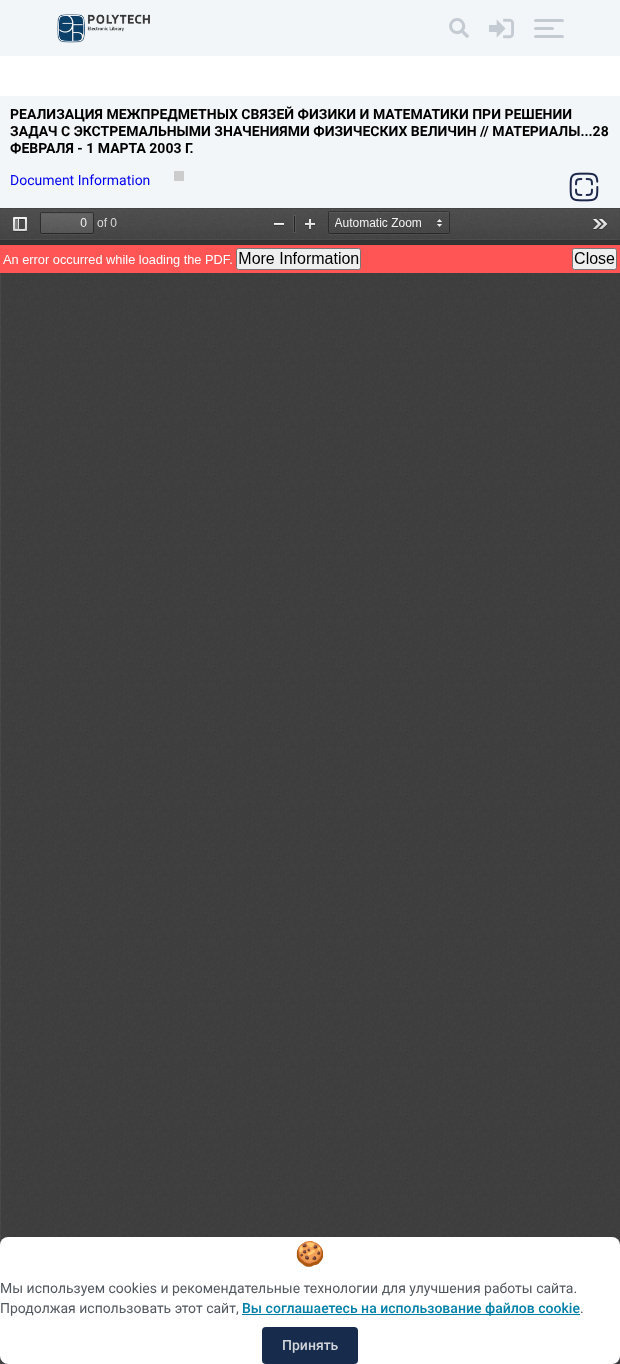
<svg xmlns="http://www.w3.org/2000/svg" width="620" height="1364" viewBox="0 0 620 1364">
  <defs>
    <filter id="blur1" x="-50%" y="-200%" width="200%" height="500%"><feGaussianBlur stdDeviation="1"/></filter>
    <filter id="blur2" x="-50%" y="-200%" width="200%" height="500%"><feGaussianBlur stdDeviation="2"/></filter>
  </defs>
  <rect width="100%" height="100%" fill="#f3f6f8"/>
  <image x="57" y="14" width="93" height="29" href="img1.png"/>
  <image x="449" y="18" width="20" height="20" href="img2.png"/>
  <image x="489" y="18" width="25" height="21" href="img3.png"/>
  <rect x="534" y="19" width="30" height="3" rx="1.5" fill="#c4cbd2"/>
  <rect x="534" y="27" width="20" height="3" rx="1.5" fill="#c4cbd2"/>
  <rect x="534" y="35" width="30" height="3" rx="1.5" fill="#c4cbd2"/>
  <rect x="0" y="56" width="620" height="40" fill="#ffffff"/>
  <text x="10" y="119" font-family="Roboto" font-size="14" font-weight="bold" fill="#000000">РЕАЛИЗАЦИЯ МЕЖПРЕДМЕТНЫХ СВЯЗЕЙ ФИЗИКИ И МАТЕМАТИКИ ПРИ РЕШЕНИИ</text>
  <text x="10" y="136" font-family="Roboto" font-size="14" font-weight="bold" fill="#000000">ЗАДАЧ С ЭКСТРЕМАЛЬНЫМИ ЗНАЧЕНИЯМИ ФИЗИЧЕСКИХ ВЕЛИЧИН // МАТЕРИАЛЫ...28</text>
  <text x="10" y="153" font-family="Roboto" font-size="14" font-weight="bold" fill="#000000">ФЕВРАЛЯ - 1 МАРТА 2003 Г.</text>
  <text x="10" y="185" font-family="Roboto" font-size="14" fill="#0000ee">Document Information</text>
  <rect x="174" y="171" width="10" height="10" fill="#cccccc"/>
  <image x="569" y="172" width="30" height="30" href="img4.png"/>
  <image x="0" y="208" width="620" height="1156" href="img5.png"/>
  <rect x="0" y="1238" width="620" height="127" rx="8" fill="#000000" fill-opacity="0.07" filter="url(#blur1)"/>
  <rect x="0" y="1239" width="620" height="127" rx="8" fill="#0a2540" fill-opacity="0.09" filter="url(#blur2)"/>
  <rect x="0" y="1237" width="620" height="127" rx="8" fill="#ffffff"/>
  <text x="295" y="1262" font-family="Noto Color Emoji" font-size="24" fill="#52585f">🍪</text>
  <text x="0" y="1293" font-family="Roboto" font-size="14" fill="#52585f">Мы используем cookies и рекомендательные технологии для улучшения работы сайта.</text>
  <text x="0" y="1313" font-family="Roboto" font-size="14" fill="#52585f">Продолжая использовать этот сайт,</text>
  <rect x="242" y="1314" width="338" height="1" fill="#0080a7"/>
  <text x="242" y="1313" font-family="Roboto" font-size="14" font-weight="500" fill="#0080a7">Вы соглашаетесь на использование файлов cookie</text>
  <text x="580" y="1313" font-family="Roboto" font-size="14" fill="#52585f">.</text>
  <rect x="262" y="1327" width="96" height="37" rx="4" fill="#172b4d"/>
  <text x="282" y="1350" font-family="Roboto" font-size="14" font-weight="500" fill="#d1d5db">Принять</text>
</svg>
